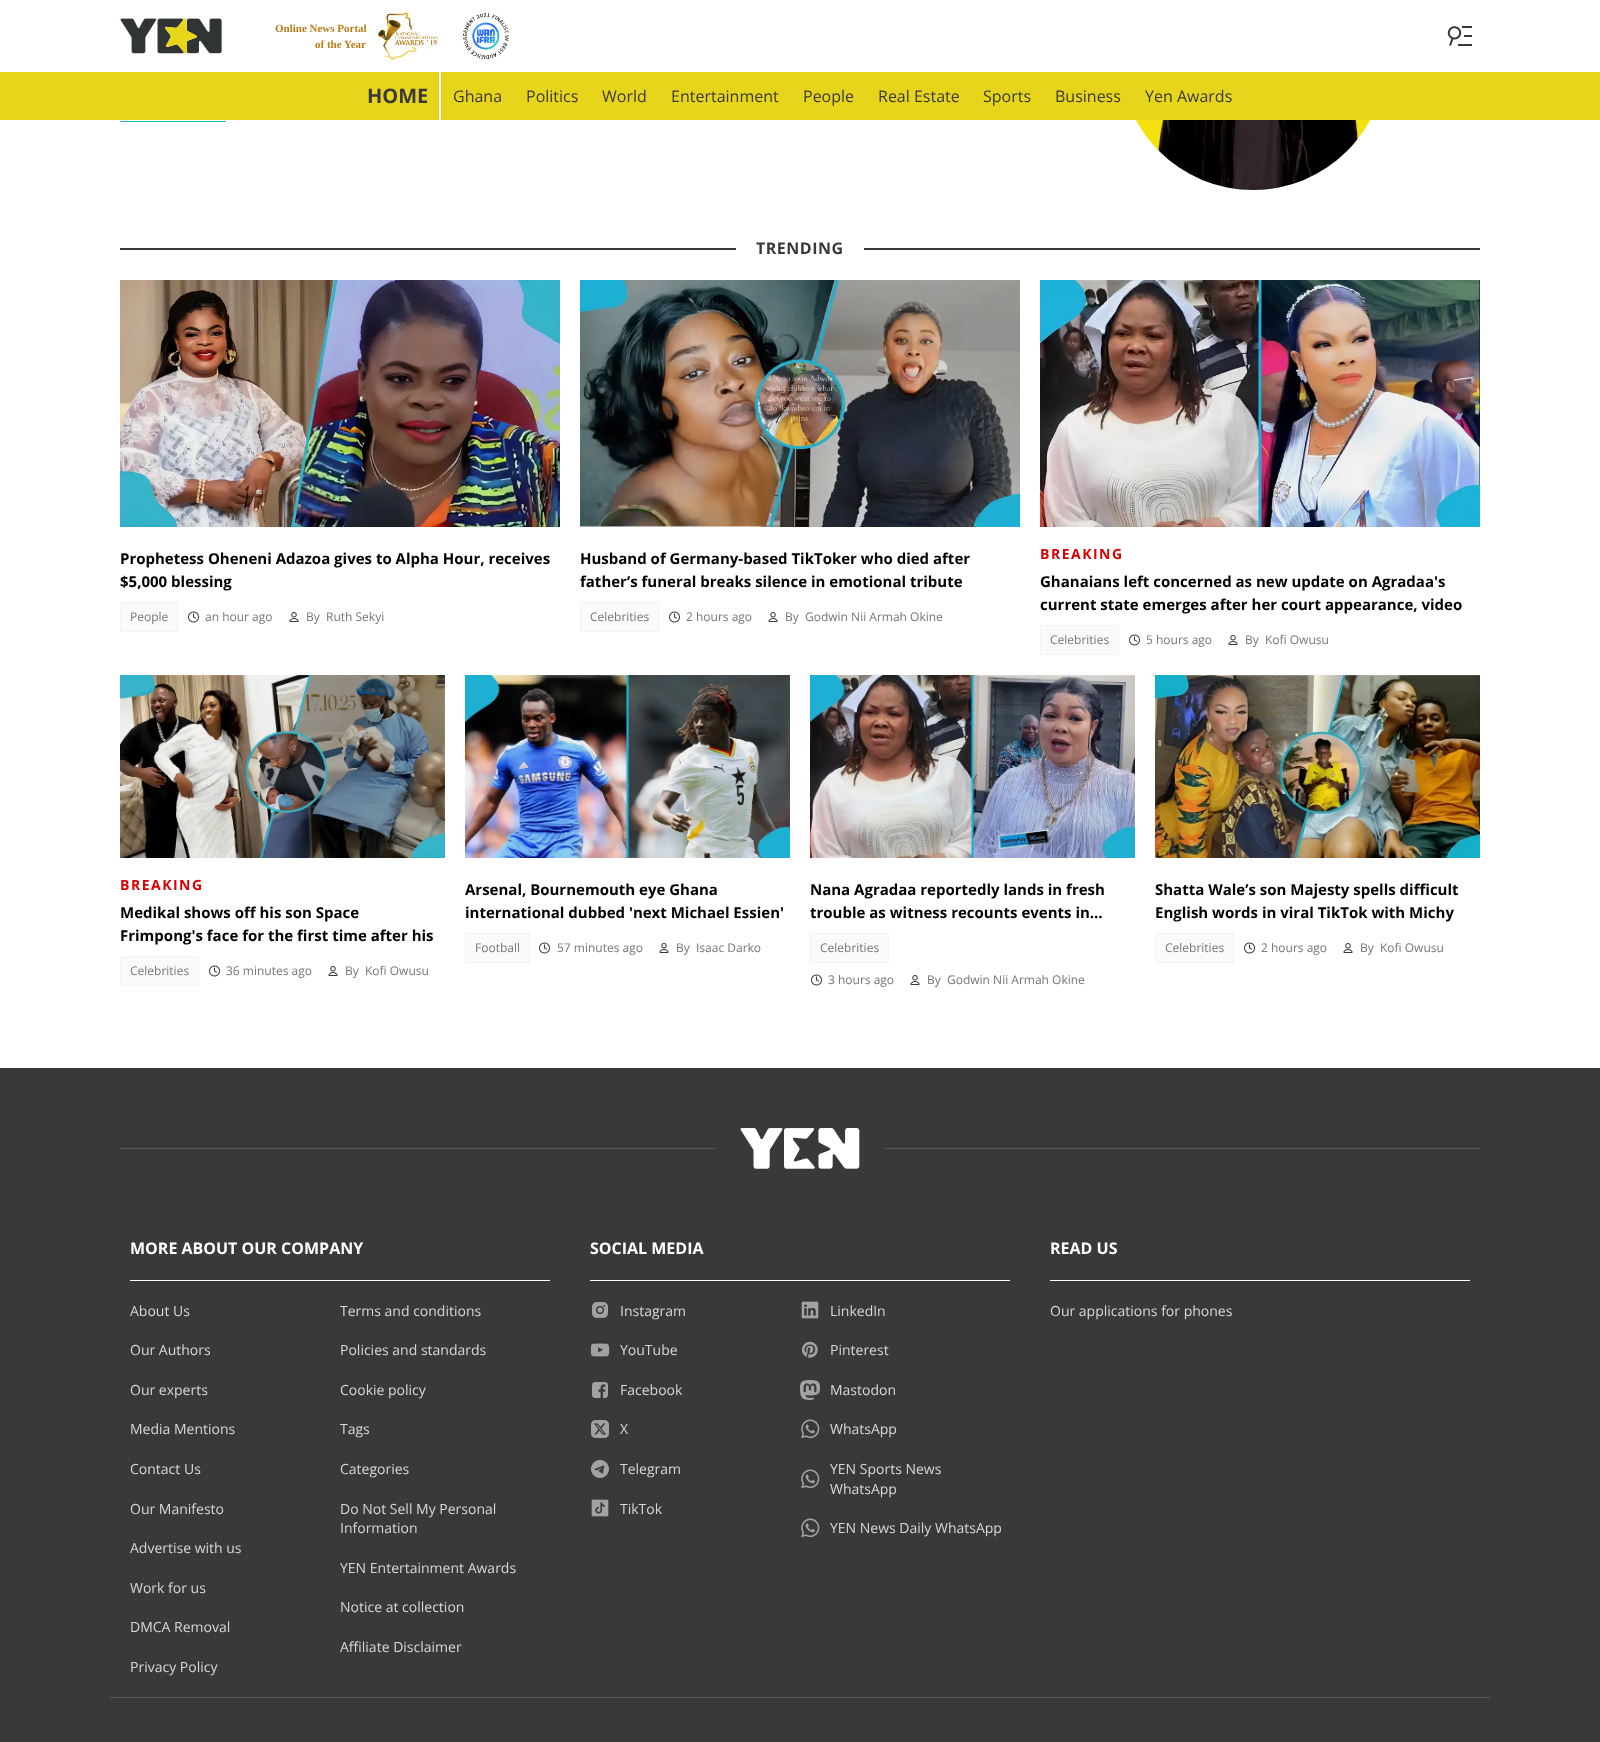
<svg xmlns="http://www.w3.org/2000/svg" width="1600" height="1742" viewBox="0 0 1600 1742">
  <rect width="100%" height="100%" fill="#ffffff"/>
  <image x="120" y="18" width="102" height="36" href="img1.png"/>
  <text x="275" y="32" font-family="Liberation Serif" font-size="11" font-weight="bold" fill="#b57e1c">Online News Portal</text>
  <text x="315" y="48" font-family="Liberation Serif" font-size="11" font-weight="bold" fill="#b57e1c">of the Year</text>
  <image x="378" y="12" width="60" height="48" href="img2.png"/>
  <image x="462" y="13" width="47" height="47" href="img3.png"/>
  <image x="1447" y="26" width="25" height="20" href="img4.png"/>
  <rect x="0" y="72" width="1600" height="48" fill="#e7d51b"/>
  <text x="367" y="103" font-family="Open Sans" font-size="20" font-weight="bold" fill="#3a3938">HOME</text>
  <rect x="439" y="72" width="2" height="48" fill="#ffffff"/>
  <text x="453" y="102" font-family="Open Sans" font-size="16" fill="#3a3938">Ghana</text>
  <text x="526" y="102" font-family="Open Sans" font-size="16" fill="#3a3938">Politics</text>
  <text x="602" y="102" font-family="Open Sans" font-size="16" fill="#3a3938">World</text>
  <text x="671" y="102" font-family="Open Sans" font-size="16" fill="#3a3938">Entertainment</text>
  <text x="803" y="102" font-family="Open Sans" font-size="16" fill="#3a3938">People</text>
  <text x="878" y="102" font-family="Open Sans" font-size="16" fill="#3a3938">Real Estate</text>
  <text x="983" y="102" font-family="Open Sans" font-size="16" fill="#3a3938">Sports</text>
  <text x="1055" y="102" font-family="Open Sans" font-size="16" fill="#3a3938">Business</text>
  <text x="1145" y="102" font-family="Open Sans" font-size="16" fill="#3a3938">Yen Awards</text>
  <rect x="120" y="121" width="106" height="1" fill="#20b9de"/>
  <image x="1135" y="120" width="236" height="70" href="img5.png"/>
  <rect x="120" y="248" width="1360" height="2" fill="#3a3938"/>
  <rect x="736" y="248" width="128" height="2" fill="#ffffff"/>
  <text x="756" y="254" font-family="Open Sans" font-size="16" font-weight="bold" letter-spacing="0.5" fill="#3a3938">TRENDING</text>
  <image x="120" y="280" width="440" height="247" href="img6.png"/>
  <text x="120" y="564" font-family="Open Sans" font-size="15" font-weight="bold" fill="#010101">Prophetess Oheneni Adazoa gives to Alpha Hour, receives</text>
  <text x="120" y="587" font-family="Open Sans" font-size="15" font-weight="bold" fill="#010101">$5,000 blessing</text>
  <rect x="120.5" y="602.5" width="57" height="29" fill="#fafafa" stroke="#f3f3f3"/>
  <text x="130" y="621" font-family="Open Sans" font-size="12" fill="#757575">People</text>
  <image x="188" y="611" width="11" height="12" href="img7.png"/>
  <text x="205" y="621" font-family="Open Sans" font-size="12" fill="#757575">an hour ago</text>
  <image x="289" y="612" width="10" height="10" href="img8.png"/>
  <text x="306" y="621" font-family="Open Sans" font-size="12" fill="#757575">By</text>
  <text x="326" y="621" font-family="Open Sans" font-size="12" fill="#757575">Ruth Sekyi</text>
  <image x="580" y="280" width="440" height="247" href="img9.png"/>
  <text x="580" y="564" font-family="Open Sans" font-size="15" font-weight="bold" fill="#010101">Husband of Germany-based TikToker who died after</text>
  <text x="580" y="587" font-family="Open Sans" font-size="15" font-weight="bold" fill="#010101">father’s funeral breaks silence in emotional tribute</text>
  <rect x="580.5" y="602.5" width="78" height="29" fill="#fafafa" stroke="#f3f3f3"/>
  <text x="590" y="621" font-family="Open Sans" font-size="12" fill="#757575">Celebrities</text>
  <image x="669" y="611" width="11" height="12" href="img7.png"/>
  <text x="686" y="621" font-family="Open Sans" font-size="12" fill="#757575">2 hours ago</text>
  <image x="768" y="612" width="10" height="10" href="img8.png"/>
  <text x="785" y="621" font-family="Open Sans" font-size="12" fill="#757575">By</text>
  <text x="805" y="621" font-family="Open Sans" font-size="12" fill="#757575">Godwin Nii Armah Okine</text>
  <image x="1040" y="280" width="440" height="247" href="img10.png"/>
  <text x="1040" y="559" font-family="Open Sans" font-size="14" font-weight="bold" letter-spacing="1.5" fill="#db0000">BREAKING</text>
  <text x="1040" y="587" font-family="Open Sans" font-size="15" font-weight="bold" fill="#010101">Ghanaians left concerned as new update on Agradaa's</text>
  <text x="1040" y="610" font-family="Open Sans" font-size="15" font-weight="bold" fill="#010101">current state emerges after her court appearance, video</text>
  <rect x="1040.5" y="625.5" width="78" height="29" fill="#fafafa" stroke="#f3f3f3"/>
  <text x="1050" y="644" font-family="Open Sans" font-size="12" fill="#757575">Celebrities</text>
  <image x="1129" y="634" width="11" height="12" href="img7.png"/>
  <text x="1146" y="644" font-family="Open Sans" font-size="12" fill="#757575">5 hours ago</text>
  <image x="1228" y="635" width="10" height="10" href="img8.png"/>
  <text x="1245" y="644" font-family="Open Sans" font-size="12" fill="#757575">By</text>
  <text x="1265" y="644" font-family="Open Sans" font-size="12" fill="#757575">Kofi Owusu</text>
  <image x="120" y="675" width="325" height="183" href="img11.png"/>
  <text x="120" y="890" font-family="Open Sans" font-size="14" font-weight="bold" letter-spacing="1.5" fill="#db0000">BREAKING</text>
  <text x="120" y="918" font-family="Open Sans" font-size="15" font-weight="bold" fill="#010101">Medikal shows off his son Space</text>
  <text x="120" y="941" font-family="Open Sans" font-size="15" font-weight="bold" fill="#010101">Frimpong's face for the first time after his</text>
  <rect x="120.5" y="956.5" width="78" height="29" fill="#fafafa" stroke="#f3f3f3"/>
  <text x="130" y="975" font-family="Open Sans" font-size="12" fill="#757575">Celebrities</text>
  <image x="209" y="965" width="11" height="12" href="img7.png"/>
  <text x="226" y="975" font-family="Open Sans" font-size="12" fill="#757575">36 minutes ago</text>
  <image x="328" y="966" width="10" height="10" href="img8.png"/>
  <text x="345" y="975" font-family="Open Sans" font-size="12" fill="#757575">By</text>
  <text x="365" y="975" font-family="Open Sans" font-size="12" fill="#757575">Kofi Owusu</text>
  <image x="465" y="675" width="325" height="183" href="img12.png"/>
  <text x="465" y="895" font-family="Open Sans" font-size="15" font-weight="bold" fill="#010101">Arsenal, Bournemouth eye Ghana</text>
  <text x="465" y="918" font-family="Open Sans" font-size="15" font-weight="bold" fill="#010101">international dubbed 'next Michael Essien'</text>
  <rect x="465.5" y="933.5" width="64" height="29" fill="#fafafa" stroke="#f3f3f3"/>
  <text x="475" y="952" font-family="Open Sans" font-size="12" fill="#757575">Football</text>
  <image x="539" y="942" width="11" height="12" href="img7.png"/>
  <text x="557" y="952" font-family="Open Sans" font-size="12" fill="#757575">57 minutes ago</text>
  <image x="659" y="943" width="10" height="10" href="img8.png"/>
  <text x="676" y="952" font-family="Open Sans" font-size="12" fill="#757575">By</text>
  <text x="696" y="952" font-family="Open Sans" font-size="12" fill="#757575">Isaac Darko</text>
  <image x="810" y="675" width="325" height="183" href="img13.png"/>
  <text x="810" y="895" font-family="Open Sans" font-size="15" font-weight="bold" fill="#010101">Nana Agradaa reportedly lands in fresh</text>
  <text x="810" y="918" font-family="Open Sans" font-size="15" font-weight="bold" fill="#010101">trouble as witness recounts events in…</text>
  <rect x="810.5" y="933.5" width="78" height="29" fill="#fafafa" stroke="#f3f3f3"/>
  <text x="820" y="952" font-family="Open Sans" font-size="12" fill="#757575">Celebrities</text>
  <image x="811" y="974" width="11" height="12" href="img7.png"/>
  <text x="828" y="984" font-family="Open Sans" font-size="12" fill="#757575">3 hours ago</text>
  <image x="910" y="975" width="10" height="10" href="img8.png"/>
  <text x="927" y="984" font-family="Open Sans" font-size="12" fill="#757575">By</text>
  <text x="947" y="984" font-family="Open Sans" font-size="12" fill="#757575">Godwin Nii Armah Okine</text>
  <image x="1155" y="675" width="325" height="183" href="img14.png"/>
  <text x="1155" y="895" font-family="Open Sans" font-size="15" font-weight="bold" fill="#010101">Shatta Wale’s son Majesty spells difficult</text>
  <text x="1155" y="918" font-family="Open Sans" font-size="15" font-weight="bold" fill="#010101">English words in viral TikTok with Michy</text>
  <rect x="1155.5" y="933.5" width="78" height="29" fill="#fafafa" stroke="#f3f3f3"/>
  <text x="1165" y="952" font-family="Open Sans" font-size="12" fill="#757575">Celebrities</text>
  <image x="1244" y="942" width="11" height="12" href="img7.png"/>
  <text x="1261" y="952" font-family="Open Sans" font-size="12" fill="#757575">2 hours ago</text>
  <image x="1343" y="943" width="10" height="10" href="img8.png"/>
  <text x="1360" y="952" font-family="Open Sans" font-size="12" fill="#757575">By</text>
  <text x="1380" y="952" font-family="Open Sans" font-size="12" fill="#757575">Kofi Owusu</text>
  <rect x="0" y="1068" width="1600" height="674" fill="#3a3938"/>
  <rect x="120" y="1148" width="595" height="1" fill="#5a5958"/>
  <image x="740" y="1128" width="120" height="41" href="img15.png"/>
  <rect x="885" y="1148" width="595" height="1" fill="#5a5958"/>
  <rect x="130" y="1280" width="420" height="1" fill="#ffffff"/>
  <text x="130" y="1254" font-family="Open Sans" font-size="16" font-weight="bold" fill="#ffffff">MORE ABOUT OUR COMPANY</text>
  <text x="130" y="1316" font-family="Open Sans" font-size="14" fill="#d8d7d7">About Us</text>
  <text x="130" y="1355" font-family="Open Sans" font-size="14" fill="#d8d7d7">Our Authors</text>
  <text x="130" y="1395" font-family="Open Sans" font-size="14" fill="#d8d7d7">Our experts</text>
  <text x="130" y="1434" font-family="Open Sans" font-size="14" fill="#d8d7d7">Media Mentions</text>
  <text x="130" y="1474" font-family="Open Sans" font-size="14" fill="#d8d7d7">Contact Us</text>
  <text x="130" y="1514" font-family="Open Sans" font-size="14" fill="#d8d7d7">Our Manifesto</text>
  <text x="130" y="1553" font-family="Open Sans" font-size="14" fill="#d8d7d7">Advertise with us</text>
  <text x="130" y="1593" font-family="Open Sans" font-size="14" fill="#d8d7d7">Work for us</text>
  <text x="130" y="1632" font-family="Open Sans" font-size="14" fill="#d8d7d7">DMCA Removal</text>
  <text x="130" y="1672" font-family="Open Sans" font-size="14" fill="#d8d7d7">Privacy Policy</text>
  <text x="340" y="1316" font-family="Open Sans" font-size="14" fill="#d8d7d7">Terms and conditions</text>
  <text x="340" y="1355" font-family="Open Sans" font-size="14" fill="#d8d7d7">Policies and standards</text>
  <text x="340" y="1395" font-family="Open Sans" font-size="14" fill="#d8d7d7">Cookie policy</text>
  <text x="340" y="1434" font-family="Open Sans" font-size="14" fill="#d8d7d7">Tags</text>
  <text x="340" y="1474" font-family="Open Sans" font-size="14" fill="#d8d7d7">Categories</text>
  <text x="340" y="1514" font-family="Open Sans" font-size="14" fill="#d8d7d7">Do Not Sell My Personal</text>
  <text x="340" y="1533" font-family="Open Sans" font-size="14" fill="#d8d7d7">Information</text>
  <text x="340" y="1573" font-family="Open Sans" font-size="14" fill="#d8d7d7">YEN Entertainment Awards</text>
  <text x="340" y="1612" font-family="Open Sans" font-size="14" fill="#d8d7d7">Notice at collection</text>
  <text x="340" y="1652" font-family="Open Sans" font-size="14" fill="#d8d7d7">Affiliate Disclaimer</text>
  <rect x="590" y="1280" width="420" height="1" fill="#ffffff"/>
  <text x="590" y="1254" font-family="Open Sans" font-size="16" font-weight="bold" fill="#ffffff">SOCIAL MEDIA</text>
  <image x="592" y="1302" width="16" height="16" href="img16.png"/>
  <text x="620" y="1316" font-family="Open Sans" font-size="14" fill="#d8d7d7">Instagram</text>
  <image x="590" y="1343" width="20" height="14" href="img17.png"/>
  <text x="620" y="1355" font-family="Open Sans" font-size="14" fill="#d8d7d7">YouTube</text>
  <image x="592" y="1382" width="16" height="16" href="img18.png"/>
  <text x="620" y="1395" font-family="Open Sans" font-size="14" fill="#d8d7d7">Facebook</text>
  <image x="591" y="1420" width="18" height="18" href="img19.png"/>
  <text x="620" y="1434" font-family="Open Sans" font-size="14" fill="#d8d7d7">X</text>
  <image x="591" y="1460" width="18" height="18" href="img20.png"/>
  <text x="620" y="1474" font-family="Open Sans" font-size="14" fill="#d8d7d7">Telegram</text>
  <image x="591" y="1499" width="18" height="18" href="img21.png"/>
  <text x="620" y="1514" font-family="Open Sans" font-size="14" fill="#d8d7d7">TikTok</text>
  <image x="801" y="1301" width="18" height="18" href="img22.png"/>
  <text x="830" y="1316" font-family="Open Sans" font-size="14" fill="#d8d7d7">LinkedIn</text>
  <image x="801" y="1341" width="17" height="17" href="img23.png"/>
  <text x="830" y="1355" font-family="Open Sans" font-size="14" fill="#d8d7d7">Pinterest</text>
  <image x="800" y="1380" width="20" height="20" href="img24.png"/>
  <text x="830" y="1395" font-family="Open Sans" font-size="14" fill="#d8d7d7">Mastodon</text>
  <image x="801" y="1419" width="19" height="20" href="img25.png"/>
  <text x="830" y="1434" font-family="Open Sans" font-size="14" fill="#d8d7d7">WhatsApp</text>
  <image x="801" y="1469" width="19" height="20" href="img25.png"/>
  <text x="830" y="1474" font-family="Open Sans" font-size="14" fill="#d8d7d7">YEN Sports News</text>
  <text x="830" y="1494" font-family="Open Sans" font-size="14" fill="#d8d7d7">WhatsApp</text>
  <image x="801" y="1518" width="19" height="20" href="img25.png"/>
  <text x="830" y="1533" font-family="Open Sans" font-size="14" fill="#d8d7d7">YEN News Daily WhatsApp</text>
  <rect x="1050" y="1280" width="420" height="1" fill="#ffffff"/>
  <text x="1050" y="1254" font-family="Open Sans" font-size="16" font-weight="bold" fill="#ffffff">READ US</text>
  <text x="1050" y="1316" font-family="Open Sans" font-size="14" fill="#d8d7d7">Our applications for phones</text>
  <rect x="110" y="1697" width="1380" height="1" fill="#5a5958"/>
</svg>
